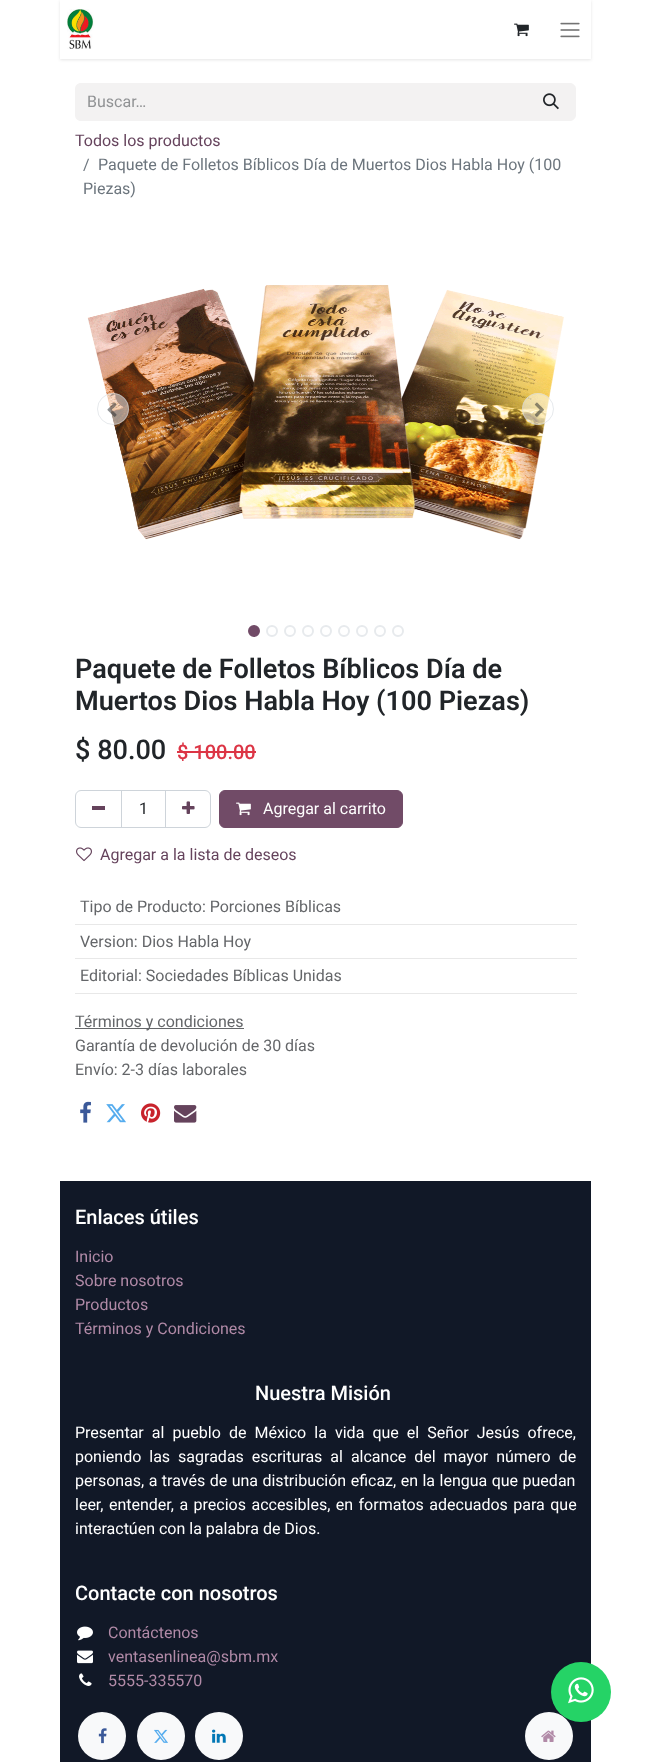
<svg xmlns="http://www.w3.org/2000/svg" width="651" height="1762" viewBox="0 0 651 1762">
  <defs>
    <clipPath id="clip1"><path d="M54 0H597V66H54ZM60 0H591V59H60Z" clip-rule="evenodd"/></clipPath>
    <filter id="blur1" x="-50%" y="-200%" width="200%" height="500%"><feGaussianBlur stdDeviation="1.5"/></filter>
  </defs>
  <rect width="100%" height="100%" fill="#ffffff"/>
  <g clip-path="url(#clip1)">
    <rect x="60" y="1" width="531" height="59" fill="#000000" fill-opacity="0.1" filter="url(#blur1)"/>
  </g>
  <image x="67" y="9" width="27" height="40" href="img1.png"/>
  <image x="514" y="23" width="15" height="14" href="img2.png"/>
  <image x="560" y="22" width="20" height="16" href="img3.png"/>
  <path d="M81 83H527V121H81C77.5 121 75 118.5 75 115V89C75 85.5 77.5 83 81 83Z" fill="#f3f2f2"/>
  <text x="87" y="107" font-family="Roboto" font-size="16" fill="#909294">Buscar…</text>
  <path d="M526.5 83.5H570C573 83.5 575.5 86 575.5 89V115C575.5 118 573 120.5 570 120.5H526.5Z" fill="#f3f2f2" stroke="#f3f2f2"/>
  <image x="543" y="93" width="16" height="17" href="img4.png"/>
  <text x="75" y="146" font-family="Roboto" font-size="16" fill="#65435c">Todos los productos</text>
  <text x="83" y="170" font-family="Roboto" font-size="16" fill="#6c757d">/</text>
  <text x="98" y="170" font-family="Roboto" font-size="16" fill="#6c757d">Paquete de Folletos Bíblicos Día de Muertos Dios Habla Hoy (100</text>
  <text x="83" y="194" font-family="Roboto" font-size="16" fill="#6c757d">Piezas)</text>
  <image x="87" y="285" width="477" height="255" href="img5.png"/>
  <circle cx="113" cy="409" r="16" fill="#ffffff" fill-opacity="0.5"/>
  <circle cx="113" cy="409" r="15.5" fill="none" stroke="#ced4da" stroke-opacity="0.5"/>
  <image x="107" y="402" width="10" height="15" href="img6.png"/>
  <circle cx="538" cy="409" r="16" fill="#ffffff" fill-opacity="0.5"/>
  <circle cx="538" cy="409" r="15.5" fill="none" stroke="#ced4da" stroke-opacity="0.5"/>
  <image x="534" y="402" width="10" height="15" href="img7.png"/>
  <circle cx="254" cy="631" r="5" fill="#714b67" stroke="#714b67" stroke-width="2"/>
  <circle cx="272" cy="631" r="5" fill="none" stroke="#e7eaed" stroke-width="2"/>
  <circle cx="290" cy="631" r="5" fill="none" stroke="#e7eaed" stroke-width="2"/>
  <circle cx="308" cy="631" r="5" fill="none" stroke="#e7eaed" stroke-width="2"/>
  <circle cx="326" cy="631" r="5" fill="none" stroke="#e7eaed" stroke-width="2"/>
  <circle cx="344" cy="631" r="5" fill="none" stroke="#e7eaed" stroke-width="2"/>
  <circle cx="362" cy="631" r="5" fill="none" stroke="#e7eaed" stroke-width="2"/>
  <circle cx="380" cy="631" r="5" fill="none" stroke="#e7eaed" stroke-width="2"/>
  <circle cx="398" cy="631" r="5" fill="none" stroke="#e7eaed" stroke-width="2"/>
  <text x="75" y="678" font-family="Roboto" font-size="27.1" font-weight="600" fill="#212529">Paquete de Folletos Bíblicos Día de</text>
  <text x="75" y="710" font-family="Roboto" font-size="27.1" font-weight="600" fill="#212529">Muertos Dios Habla Hoy (100 Piezas)</text>
  <text x="75" y="759" font-family="Roboto" font-size="27.1" font-weight="500" fill="#212529">$ 80.00</text>
  <text x="177" y="759" font-family="Roboto" font-size="20" font-weight="500" fill="#dc3545">$ 100.00</text>
  <rect x="177" y="751" width="79" height="2" fill="#dc3545"/>
  <rect x="121.5" y="790.5" width="44" height="37" fill="none" stroke="#ced4da"/>
  <path d="M81 790.5H121.5V827.5H81C78 827.5 75.5 825 75.5 822V796C75.5 793 78 790.5 81 790.5Z" fill="none" stroke="#ced4da"/>
  <rect x="92" y="806" width="13" height="4" fill="#65435c"/>
  <text x="139" y="814" font-family="Roboto" font-size="16" fill="#212529">1</text>
  <path d="M165.5 790.5H205C208 790.5 210.5 793 210.5 796V822C210.5 825 208 827.5 205 827.5H165.5Z" fill="none" stroke="#ced4da"/>
  <image x="182" y="801" width="13" height="13" href="img8.png"/>
  <rect x="219.5" y="790.5" width="183" height="37" rx="5.5" fill="#714b67" stroke="#714b67"/>
  <image x="236" y="802" width="15" height="14" href="img9.png"/>
  <text x="263" y="814" font-family="Roboto" font-size="16" fill="#ffffff">Agregar al carrito</text>
  <image x="76" y="847" width="16" height="15" href="img10.png"/>
  <text x="100" y="860" font-family="Roboto" font-size="16" fill="#65435c">Agregar a la lista de deseos</text>
  <rect x="75" y="924" width="502" height="1" fill="#e8e8e8"/>
  <text x="80" y="912" font-family="Roboto" font-size="16" fill="#646669">Tipo de Producto: Porciones Bíblicas</text>
  <rect x="75" y="958" width="502" height="1" fill="#e8e8e8"/>
  <text x="80" y="947" font-family="Roboto" font-size="16" fill="#646669">Version: Dios Habla Hoy</text>
  <rect x="75" y="993" width="502" height="1" fill="#e8e8e8"/>
  <text x="80" y="981" font-family="Roboto" font-size="16" fill="#646669">Editorial: Sociedades Bíblicas Unidas</text>
  <rect x="75" y="1028" width="169" height="1" fill="#646669"/>
  <text x="75" y="1027" font-family="Roboto" font-size="16" fill="#646669">Términos y condiciones</text>
  <text x="75" y="1051" font-family="Roboto" font-size="16" fill="#646669">Garantía de devolución de 30 días</text>
  <text x="75" y="1075" font-family="Roboto" font-size="16" fill="#646669">Envío: 2-3 días laborales</text>
  <image x="80" y="1101" width="11" height="22" href="img11.png"/>
  <image x="106" y="1104" width="20" height="19" href="img12.png"/>
  <image x="141" y="1103" width="20" height="20" href="img13.png"/>
  <image x="174" y="1105" width="23" height="18" href="img14.png"/>
  <rect x="60" y="1181" width="531" height="581" fill="#111827"/>
  <text x="75" y="1224" font-family="Roboto" font-size="20" font-weight="500" fill="#ffffff">Enlaces útiles</text>
  <text x="75" y="1262" font-family="Roboto" font-size="16" fill="#b18aa7">Inicio</text>
  <text x="75" y="1286" font-family="Roboto" font-size="16" fill="#b18aa7">Sobre nosotros</text>
  <text x="75" y="1310" font-family="Roboto" font-size="16" fill="#b18aa7">Productos</text>
  <text x="75" y="1334" font-family="Roboto" font-size="16" fill="#b18aa7">Términos y Condiciones</text>
  <text x="255" y="1400" font-family="Roboto" font-size="20" font-weight="500" fill="#ffffff">Nuestra Misión</text>
  <text x="75" y="1438" word-spacing="4.1" font-family="Roboto" font-size="16" fill="#ffffff">Presentar al pueblo de México la vida que el Señor Jesús ofrece,</text>
  <text x="75" y="1462" word-spacing="4" font-family="Roboto" font-size="16" fill="#ffffff">poniendo las sagradas escrituras al alcance del mayor número de</text>
  <text x="75" y="1486" word-spacing="0.5" font-family="Roboto" font-size="16" fill="#ffffff">personas, a través de una distribución eficaz, en la lengua que puedan</text>
  <text x="75" y="1510" word-spacing="1.5" font-family="Roboto" font-size="16" fill="#ffffff">leer, entender, a precios accesibles, en formatos adecuados para que</text>
  <text x="75" y="1534" font-family="Roboto" font-size="16" fill="#ffffff">interactúen con la palabra de Dios.</text>
  <text x="75" y="1600" font-family="Roboto" font-size="20" font-weight="500" fill="#ffffff">Contacte con nosotros</text>
  <image x="77" y="1626" width="16" height="15" href="img15.png"/>
  <text x="108" y="1638" font-family="Roboto" font-size="16" fill="#b18aa7">Contáctenos</text>
  <image x="77" y="1650" width="16" height="14" href="img16.png"/>
  <text x="108" y="1662" font-family="Roboto" font-size="16" fill="#b18aa7">ventasenlinea@sbm.mx</text>
  <image x="79" y="1673" width="13" height="13" href="img17.png"/>
  <text x="108" y="1686" font-family="Roboto" font-size="16" fill="#b18aa7">5555-335570</text>
  <circle cx="102" cy="1736" r="24" fill="#f8f9fa"/>
  <image x="98" y="1728" width="9" height="16" href="img18.png"/>
  <circle cx="161" cy="1736" r="24" fill="#f8f9fa"/>
  <image x="154" y="1729" width="14" height="14" href="img19.png"/>
  <circle cx="219" cy="1736" r="24" fill="#f8f9fa"/>
  <image x="212" y="1729" width="14" height="14" href="img20.png"/>
  <circle cx="549" cy="1736" r="24" fill="#f8f9fa"/>
  <image x="541" y="1730" width="15" height="12" href="img21.png"/>
  <circle cx="581" cy="1692" r="30" fill="#25d366"/>
  <image x="568" y="1677" width="26" height="27" href="img22.png"/>
</svg>
